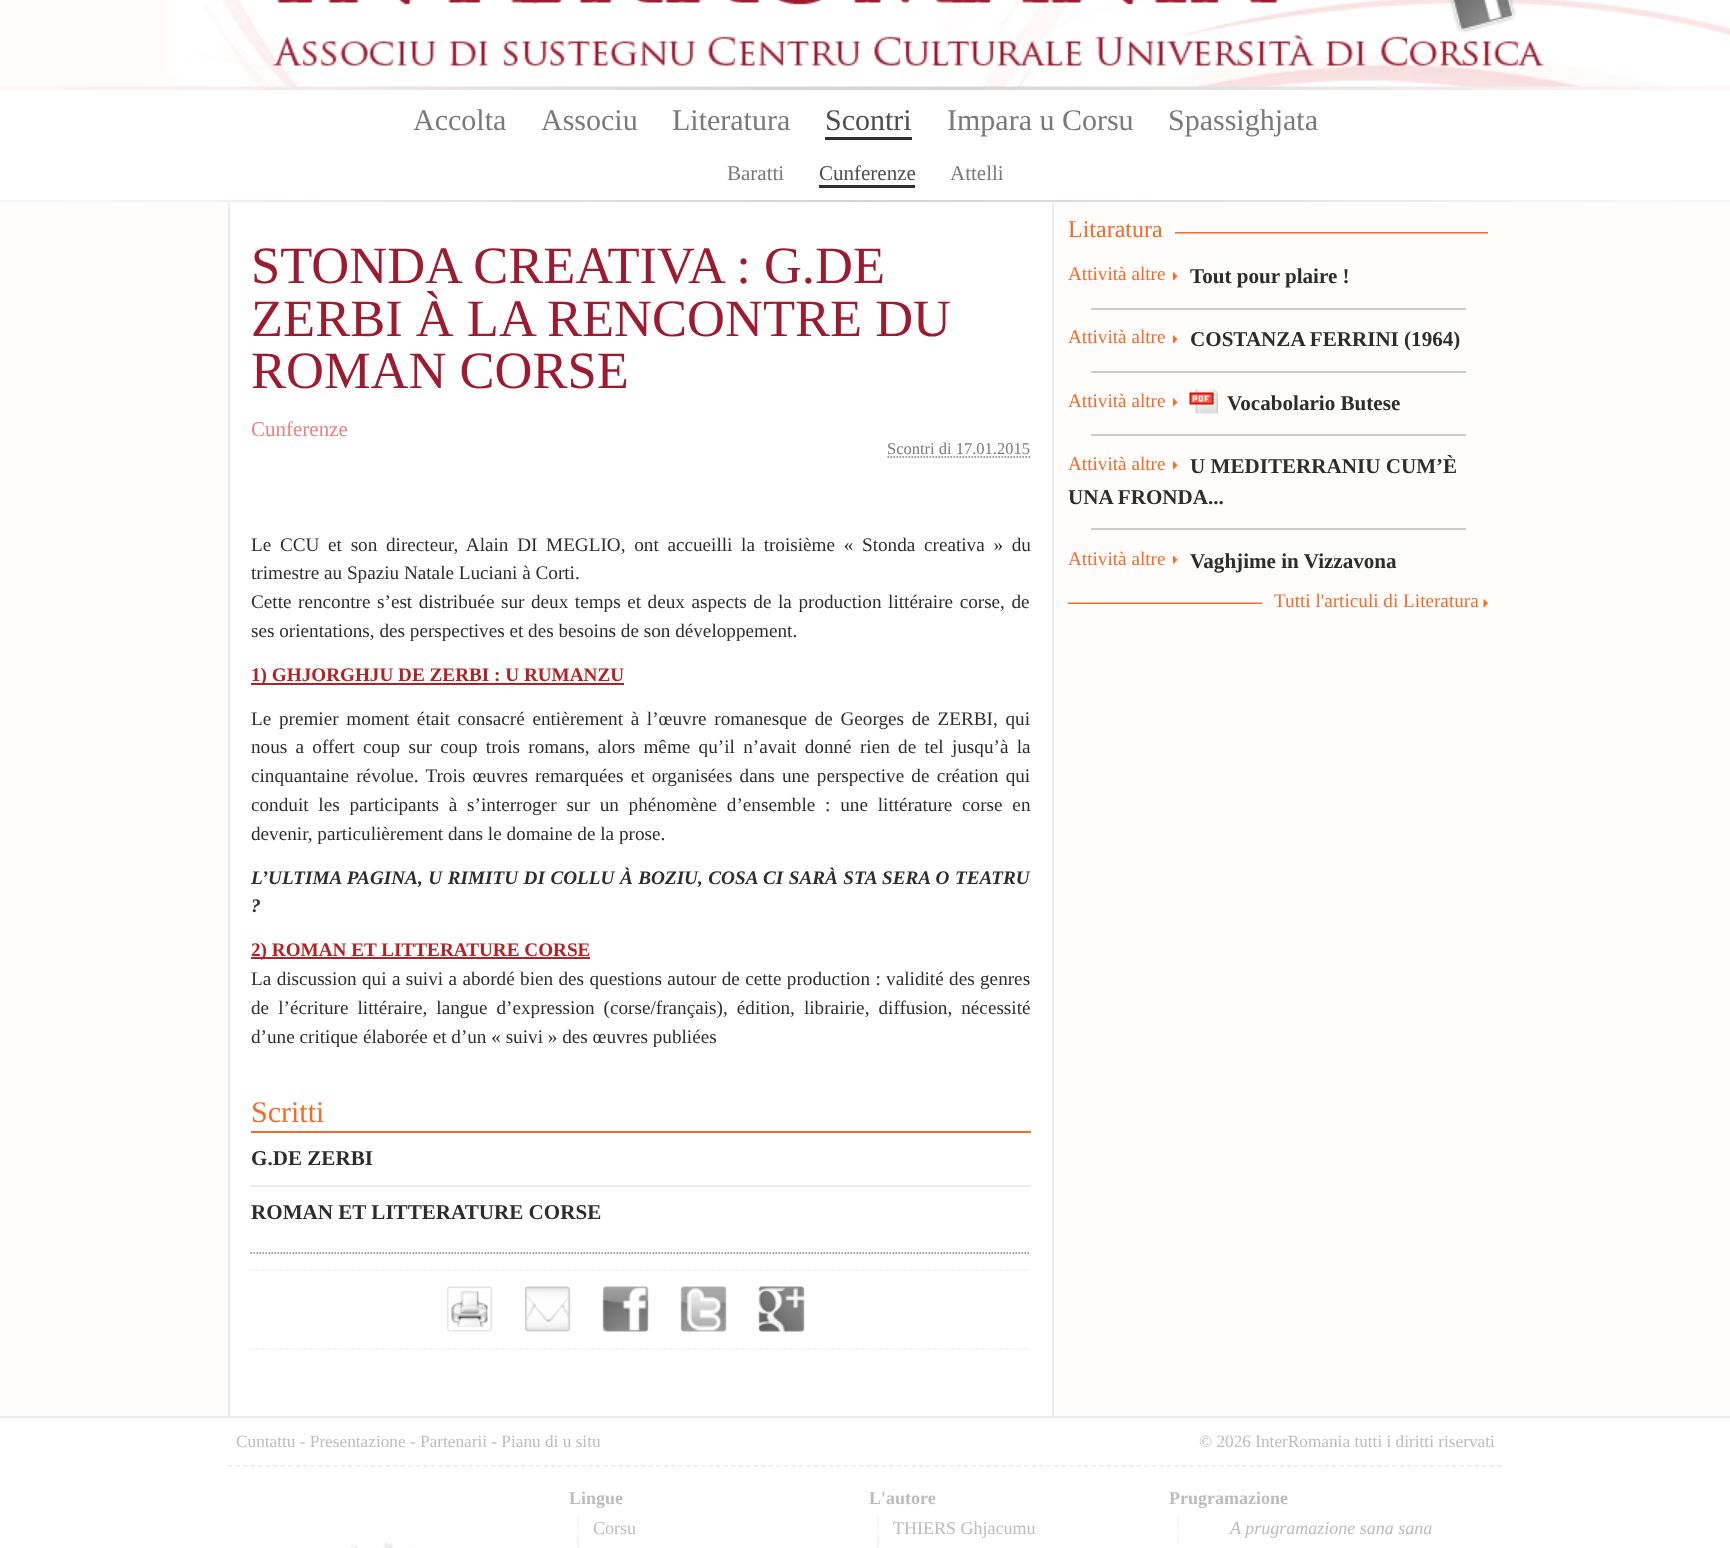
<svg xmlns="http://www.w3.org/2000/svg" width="1730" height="1548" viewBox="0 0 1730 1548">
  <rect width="100%" height="100%" fill="#fffdfc"/>
  <image x="168" y="0" width="1562" height="87" href="img1.png"/>
  <image x="273" y="0" width="1271" height="67" href="img2.png"/>
  <image x="1449" y="0" width="67" height="33" href="img3.png"/>
  <image x="0" y="86" width="1730" height="116" href="img4.png"/>
  <rect x="0" y="90" width="1730" height="110" fill="#ffffff"/>
  <text x="413" y="130" font-family="Liberation Serif" font-size="30" fill="#797979">Accolta</text>
  <text x="541" y="130" font-family="Liberation Serif" font-size="30" fill="#797979">Associu</text>
  <text x="672" y="130" font-family="Liberation Serif" font-size="30" fill="#797979">Literatura</text>
  <text x="1168" y="130" font-family="Liberation Serif" font-size="30" fill="#797979">Spassighjata</text>
  <text x="825" y="130" font-family="Liberation Serif" font-size="30" fill="#4d4d4d">Scontri</text>
  <rect x="825" y="137" width="87" height="3" fill="#2d2d2d"/>
  <text x="727" y="180" font-family="Liberation Serif" font-size="21" fill="#797979">Baratti</text>
  <text x="819" y="180" font-family="Liberation Serif" font-size="21" fill="#4d4d4d">Cunferenze</text>
  <rect x="819" y="185" width="96" height="3" fill="#2d2d2d"/>
  <text x="950" y="180" font-family="Liberation Serif" font-size="21" fill="#797979">Attelli</text>
  <text x="947" y="130" font-family="Liberation Serif" font-size="30" fill="#797979">Impara u Corsu</text>
  <rect x="230" y="203" width="822" height="1213" fill="#ffffff"/>
  <rect x="1052" y="203" width="2" height="1213" fill="#eaeaea"/>
  <rect x="228" y="203" width="2" height="1213" fill="#eaeaea"/>
  <path d="M250.5 1253H1030.5" fill="none" stroke="#797979" stroke-width="1.5" stroke-dasharray="1.5 1.5"/>
  <text x="251" y="283" font-family="Liberation Serif" font-size="52.5" fill="#9d1b2e">STONDA CREATIVA : G.DE</text>
  <text x="251" y="336" font-family="Liberation Serif" font-size="52.5" fill="#9d1b2e">ZERBI À LA RENCONTRE DU</text>
  <text x="251" y="388" font-family="Liberation Serif" font-size="52.5" fill="#9d1b2e">ROMAN CORSE</text>
  <text x="251" y="436" font-family="Liberation Serif" font-size="21" fill="#e88280">Cunferenze</text>
  <text x="887" y="454" font-family="Liberation Serif" font-size="16.5" fill="#797979">Scontri di 17.01.2015</text>
  <path d="M887.5 457H1030.5" fill="none" stroke="#797979" stroke-width="1.5" stroke-dasharray="1.5 1.5"/>
  <text x="251" y="551" word-spacing="3.9" font-family="Liberation Serif" font-size="19.2" fill="#2d2d2d">Le CCU et son directeur, Alain DI MEGLIO, ont accueilli la troisième « Stonda creativa » du</text>
  <text x="251" y="579" font-family="Liberation Serif" font-size="19.2" fill="#2d2d2d">trimestre au Spaziu Natale Luciani à Corti.</text>
  <text x="251" y="608" word-spacing="1.75" font-family="Liberation Serif" font-size="19.2" fill="#2d2d2d">Cette rencontre s’est distribuée sur deux temps et deux aspects de la production littéraire corse, de</text>
  <text x="251" y="637" font-family="Liberation Serif" font-size="19.2" fill="#2d2d2d">ses orientations, des perspectives et des besoins de son développement.</text>
  <rect x="251" y="683" width="373" height="2" fill="#b22222"/>
  <text x="251" y="681" font-family="Liberation Serif" font-size="19.2" font-weight="bold" fill="#b22222">1) GHJORGHJU DE ZERBI : U RUMANZU</text>
  <text x="251" y="725" word-spacing="2.9" font-family="Liberation Serif" font-size="19.2" fill="#2d2d2d">Le premier moment était consacré entièrement à l’œuvre romanesque de Georges de ZERBI, qui</text>
  <text x="251" y="753" word-spacing="3.5" font-family="Liberation Serif" font-size="19.2" fill="#2d2d2d">nous a offert coup sur coup trois romans, alors même qu’il n’avait donné rien de tel jusqu’à la</text>
  <text x="251" y="782" word-spacing="2.4" font-family="Liberation Serif" font-size="19.2" fill="#2d2d2d">cinquantaine révolue. Trois œuvres remarquées et organisées dans une perspective de création qui</text>
  <text x="251" y="811" word-spacing="5" font-family="Liberation Serif" font-size="19.2" fill="#2d2d2d">conduit les participants à s’interroger sur un phénomène d’ensemble : une littérature corse en</text>
  <text x="251" y="840" font-family="Liberation Serif" font-size="19.2" fill="#2d2d2d">devenir, particulièrement dans le domaine de la prose.</text>
  <text x="251" y="884" word-spacing="0.75" font-family="Liberation Serif" font-size="19.2" font-weight="bold" font-style="italic" fill="#2d2d2d">L’ULTIMA PAGINA, U RIMITU DI COLLU À BOZIU, COSA CI SARÀ STA SERA O TEATRU</text>
  <text x="251" y="912" font-family="Liberation Serif" font-size="19.2" font-weight="bold" font-style="italic" fill="#2d2d2d">?</text>
  <rect x="251" y="957" width="339" height="2" fill="#b22222"/>
  <text x="251" y="956" font-family="Liberation Serif" font-size="19.2" font-weight="bold" fill="#b22222">2) ROMAN ET LITTERATURE CORSE</text>
  <text x="251" y="985" word-spacing="0.6" font-family="Liberation Serif" font-size="19.2" fill="#2d2d2d">La discussion qui a suivi a abordé bien des questions autour de cette production : validité des genres</text>
  <text x="251" y="1014" word-spacing="4.25" font-family="Liberation Serif" font-size="19.2" fill="#2d2d2d">de l’écriture littéraire, langue d’expression (corse/français), édition, librairie, diffusion, nécessité</text>
  <text x="251" y="1043" font-family="Liberation Serif" font-size="19.2" fill="#2d2d2d">d’une critique élaborée et d’un « suivi » des œuvres publiées</text>
  <rect x="251" y="1131" width="780" height="2" fill="#f26b2b"/>
  <text x="251" y="1122" font-family="Liberation Serif" font-size="30" fill="#f26b2b">Scritti</text>
  <rect x="251" y="1185" width="780" height="2" fill="#eaeaea"/>
  <text x="251" y="1165" font-family="Liberation Serif" font-size="21.1" font-weight="bold" fill="#2d2d2d">G.DE ZERBI</text>
  <text x="251" y="1219" font-family="Liberation Serif" font-size="21.1" font-weight="bold" fill="#2d2d2d">ROMAN ET LITTERATURE CORSE</text>
  <path d="M250.5 1270H1030.5" fill="none" stroke="#eaeaea" stroke-width="1.5" stroke-dasharray="1.5 1.5"/>
  <path d="M250.5 1349H1030.5" fill="none" stroke="#eaeaea" stroke-width="1.5" stroke-dasharray="1.5 1.5"/>
  <image x="447" y="1286" width="46" height="46" href="img5.png"/>
  <image x="524" y="1286" width="47" height="46" href="img6.png"/>
  <image x="602" y="1286" width="47" height="46" href="img7.png"/>
  <image x="680" y="1286" width="47" height="46" href="img8.png"/>
  <image x="758" y="1286" width="47" height="46" href="img9.png"/>
  <image x="1175" y="232" width="313" height="2" href="img10.png"/>
  <text x="1068" y="237" font-family="Liberation Serif" font-size="24" fill="#f26b2b">Litaratura</text>
  <text x="1068" y="280" font-family="Liberation Serif" font-size="19.2" fill="#f26b2b">Attività altre</text>
  <image x="1173" y="272" width="5" height="8" href="img11.png"/>
  <text x="1190" y="283" font-family="Liberation Serif" font-size="21.1" font-weight="bold" fill="#2d2d2d">Tout pour plaire !</text>
  <rect x="1091" y="308" width="375" height="2" fill="#cccccc"/>
  <text x="1068" y="343" font-family="Liberation Serif" font-size="19.2" fill="#f26b2b">Attività altre</text>
  <image x="1173" y="335" width="5" height="8" href="img11.png"/>
  <text x="1190" y="346" font-family="Liberation Serif" font-size="21.1" font-weight="bold" fill="#2d2d2d">COSTANZA FERRINI (1964)</text>
  <rect x="1091" y="371" width="375" height="2" fill="#cccccc"/>
  <text x="1068" y="407" font-family="Liberation Serif" font-size="19.2" fill="#f26b2b">Attività altre</text>
  <image x="1173" y="398" width="5" height="8" href="img11.png"/>
  <image x="1189" y="389" width="29" height="25" href="img12.png"/>
  <text x="1227" y="410" font-family="Liberation Serif" font-size="21.1" font-weight="bold" fill="#2d2d2d">Vocabolario Butese</text>
  <rect x="1091" y="434" width="375" height="2" fill="#cccccc"/>
  <text x="1190" y="473" font-family="Liberation Serif" font-size="21.1" font-weight="bold" fill="#2d2d2d">U MEDITERRANIU CUM’È</text>
  <text x="1068" y="504" font-family="Liberation Serif" font-size="21.1" font-weight="bold" fill="#2d2d2d">UNA FRONDA...</text>
  <text x="1068" y="470" font-family="Liberation Serif" font-size="19.2" fill="#f26b2b">Attività altre</text>
  <image x="1173" y="461" width="5" height="8" href="img11.png"/>
  <rect x="1091" y="528" width="375" height="2" fill="#cccccc"/>
  <text x="1068" y="565" font-family="Liberation Serif" font-size="19.2" fill="#f26b2b">Attività altre</text>
  <image x="1173" y="556" width="5" height="8" href="img13.png"/>
  <text x="1190" y="568" font-family="Liberation Serif" font-size="21.1" font-weight="bold" fill="#2d2d2d">Vaghjime in Vizzavona</text>
  <image x="1068" y="602" width="194" height="2" href="img14.png"/>
  <text x="1274" y="607" font-family="Liberation Serif" font-size="19.2" fill="#f26b2b">Tutti l'articuli di Literatura</text>
  <image x="1483" y="599" width="5" height="8" href="img15.png"/>
  <rect x="0" y="1418" width="1730" height="130" fill="#ffffff"/>
  <rect x="0" y="1416" width="1730" height="2" fill="#eaeaea"/>
  <path d="M228 1466H1503" fill="none" stroke="#eaeaea" stroke-width="1.5" stroke-dasharray="4.5 3.01"/>
  <text x="236" y="1447" font-family="Liberation Serif" font-size="17.25" fill="#bcbcbc">Cuntattu - Presentazione - Partenarii - Pianu di u situ</text>
  <text x="1199" y="1447" font-family="Liberation Serif" font-size="17.25" fill="#bcbcbc">© 2026 InterRomania tutti i diritti riservati</text>
  <image x="350" y="1542" width="66" height="6" href="img16.png"/>
  <text x="569" y="1504" font-family="Liberation Serif" font-size="18" font-weight="bold" fill="#bcbcbc">Lingue</text>
  <path d="M578 1515V1543.5M578 1543.5V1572" fill="none" stroke="#eaeaea" stroke-width="1.5" stroke-dasharray="1.5 1.5"/>
  <text x="593" y="1534" font-family="Liberation Serif" font-size="18" fill="#bcbcbc">Corsu</text>
  <text x="869" y="1504" font-family="Liberation Serif" font-size="18" font-weight="bold" fill="#bcbcbc">L'autore</text>
  <path d="M878 1515V1543.5M878 1543.5V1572" fill="none" stroke="#eaeaea" stroke-width="1.5" stroke-dasharray="1.5 1.5"/>
  <text x="893" y="1534" font-family="Liberation Serif" font-size="18" fill="#bcbcbc">THIERS Ghjacumu</text>
  <text x="1169" y="1504" font-family="Liberation Serif" font-size="18" font-weight="bold" fill="#bcbcbc">Prugramazione</text>
  <path d="M1178 1515V1543.5" fill="none" stroke="#eaeaea" stroke-width="1.5" stroke-dasharray="1.5 1.5"/>
  <text x="1230" y="1534" font-family="Liberation Serif" font-size="18" font-style="italic" fill="#bcbcbc">A prugramazione sana sana</text>
</svg>
